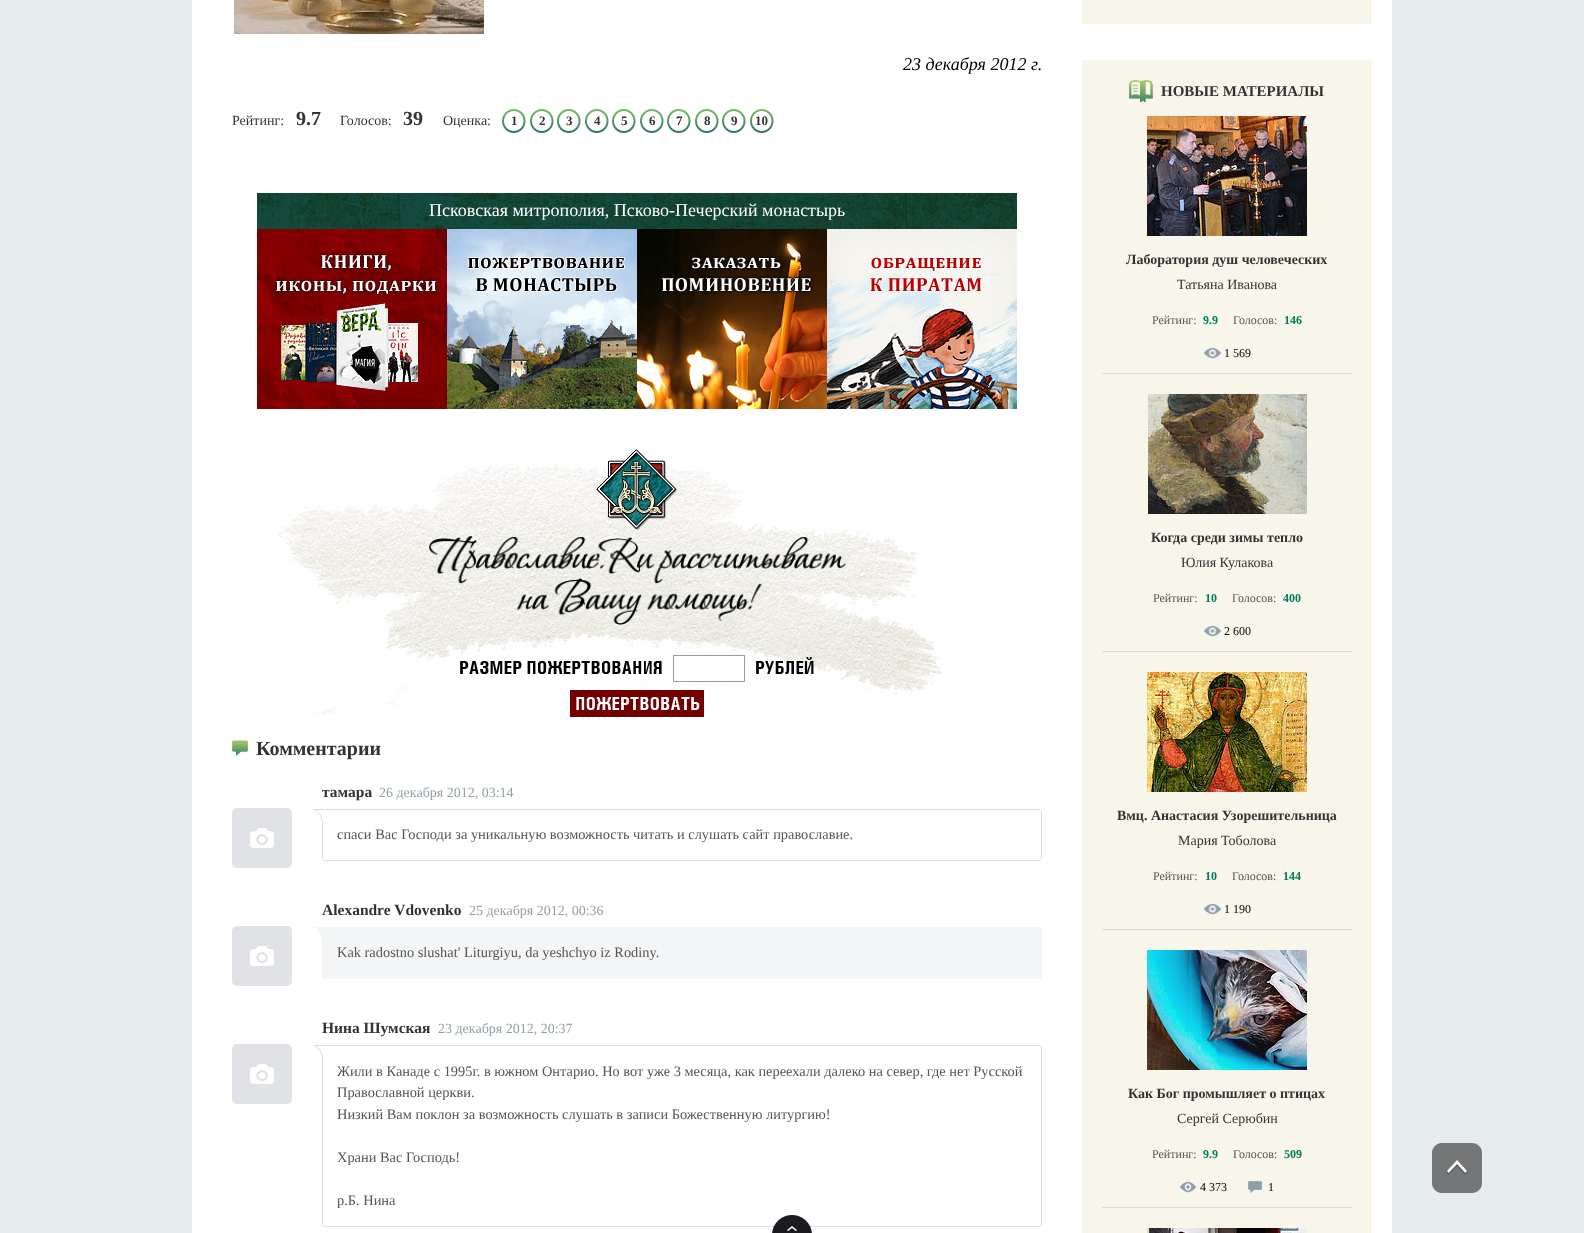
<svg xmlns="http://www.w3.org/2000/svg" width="1584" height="1233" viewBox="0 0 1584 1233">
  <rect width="100%" height="100%" fill="#e6ebee"/>
  <rect x="192" y="0" width="1200" height="1233" fill="#ffffff"/>
  <image x="234" y="0" width="250" height="34" href="img1.png"/>
  <text x="903" y="70" font-family="Liberation Serif" font-size="18" font-style="italic" fill="#000000">23 декабря 2012 г.</text>
  <text x="232" y="125" font-family="Liberation Serif" font-size="14" fill="#333333">Рейтинг:</text>
  <text x="296" y="125" font-family="Liberation Serif" font-size="20" font-weight="bold" fill="#333333">9.7</text>
  <text x="340" y="125" font-family="Liberation Serif" font-size="14" fill="#333333">Голосов:</text>
  <text x="403" y="125" font-family="Liberation Serif" font-size="20" font-weight="bold" fill="#333333">39</text>
  <text x="443" y="125" font-family="Liberation Serif" font-size="14" fill="#333333">Оценка:</text>
  <image x="502" y="109" width="24" height="24" href="img2.png"/>
  <text x="511" y="125" font-family="Liberation Serif" font-size="13" font-weight="bold" fill="#333333">1</text>
  <image x="530" y="109" width="24" height="24" href="img2.png"/>
  <text x="539" y="125" font-family="Liberation Serif" font-size="13" font-weight="bold" fill="#333333">2</text>
  <image x="557" y="109" width="24" height="24" href="img2.png"/>
  <text x="566" y="125" font-family="Liberation Serif" font-size="13" font-weight="bold" fill="#333333">3</text>
  <image x="585" y="109" width="24" height="24" href="img2.png"/>
  <text x="594" y="125" font-family="Liberation Serif" font-size="13" font-weight="bold" fill="#333333">4</text>
  <image x="612" y="109" width="24" height="24" href="img2.png"/>
  <text x="621" y="125" font-family="Liberation Serif" font-size="13" font-weight="bold" fill="#333333">5</text>
  <image x="640" y="109" width="24" height="24" href="img2.png"/>
  <text x="649" y="125" font-family="Liberation Serif" font-size="13" font-weight="bold" fill="#333333">6</text>
  <image x="667" y="109" width="24" height="24" href="img2.png"/>
  <text x="676" y="125" font-family="Liberation Serif" font-size="13" font-weight="bold" fill="#333333">7</text>
  <image x="695" y="109" width="24" height="24" href="img2.png"/>
  <text x="704" y="125" font-family="Liberation Serif" font-size="13" font-weight="bold" fill="#333333">8</text>
  <image x="722" y="109" width="24" height="24" href="img2.png"/>
  <text x="731" y="125" font-family="Liberation Serif" font-size="13" font-weight="bold" fill="#333333">9</text>
  <image x="750" y="109" width="24" height="24" href="img2.png"/>
  <text x="755" y="125" font-family="Liberation Serif" font-size="13" font-weight="bold" fill="#333333">10</text>
  <image x="257" y="193" width="760" height="36" href="img3.png"/>
  <text x="429" y="216" font-family="Liberation Serif" font-size="18" fill="#ffffff">Псковская митрополия, Псково-Печерский монастырь</text>
  <image x="257" y="229" width="190" height="180" href="img4.png"/>
  <image x="447" y="229" width="190" height="180" href="img5.png"/>
  <image x="637" y="229" width="190" height="180" href="img6.png"/>
  <image x="827" y="229" width="190" height="180" href="img7.png"/>
  <image x="274" y="463" width="669" height="252" href="img8.png"/>
  <image x="596" y="449" width="82" height="82" href="img9.png"/>
  <image x="429" y="536" width="417" height="89" href="img10.png"/>
  <image x="460" y="661" width="202" height="13" href="img11.png"/>
  <rect x="733" y="656" width="10" height="1" fill="#ffffff"/>
  <rect x="673.5" y="655.5" width="71" height="26" fill="none" stroke="#9b9b9b"/>
  <image x="756" y="657" width="58" height="17" href="img12.png"/>
  <image x="570" y="690" width="134" height="27" href="img13.png"/>
  <image x="232" y="740" width="16" height="16" href="img14.png"/>
  <text x="256" y="755" font-family="Liberation Serif" font-size="20" font-weight="bold" fill="#333333">Комментарии</text>
  <image x="232" y="808" width="60" height="60" href="img15.png"/>
  <text x="322" y="797" font-family="Liberation Serif" font-size="15.5" font-weight="bold" fill="#333333">тамара</text>
  <text x="379" y="797" font-family="Liberation Serif" font-size="14" fill="#93a0a5">26 декабря 2012, 03:14</text>
  <rect x="322.5" y="809.5" width="719" height="51" rx="2.5" fill="none" stroke="#dadde0"/>
  <image x="313" y="809" width="11" height="12" href="img16.png"/>
  <text x="337" y="839" font-family="Liberation Serif" font-size="14.4" fill="#555555">спаси Вас Господи за уникальную возможность читать и слушать сайт православие.</text>
  <image x="232" y="926" width="60" height="60" href="img15.png"/>
  <text x="322" y="915" font-family="Liberation Serif" font-size="15.5" font-weight="bold" fill="#333333">Alexandre Vdovenko</text>
  <text x="469" y="915" font-family="Liberation Serif" font-size="14" fill="#93a0a5">25 декабря 2012, 00:36</text>
  <rect x="322.5" y="927.5" width="719" height="51" rx="2.5" fill="#f4f5f6" stroke="#f4f5f6"/>
  <image x="314" y="927" width="9" height="11" href="img17.png"/>
  <text x="337" y="957" font-family="Liberation Serif" font-size="14.4" fill="#555555">Kak radostno slushat' Liturgiyu, da yeshchyo iz Rodiny.</text>
  <image x="232" y="1044" width="60" height="60" href="img15.png"/>
  <text x="322" y="1033" font-family="Liberation Serif" font-size="15.5" font-weight="bold" fill="#333333">Нина Шумская</text>
  <text x="438" y="1033" font-family="Liberation Serif" font-size="14" fill="#93a0a5">23 декабря 2012, 20:37</text>
  <rect x="322.5" y="1045.5" width="719" height="181" rx="2.5" fill="none" stroke="#dadde0"/>
  <image x="313" y="1045" width="11" height="12" href="img16.png"/>
  <text x="337" y="1076" font-family="Liberation Serif" font-size="14.4" fill="#555555">Жили в Канаде с 1995г. в южном Онтарио. Но вот уже 3 месяца, как переехали далеко на север, где нет Русской</text>
  <text x="337" y="1097" font-family="Liberation Serif" font-size="14.4" fill="#555555">Православной церкви.</text>
  <text x="337" y="1119" font-family="Liberation Serif" font-size="14.4" fill="#555555">Низкий Вам поклон за возможность слушать в записи Божественную литургию!</text>
  <text x="337" y="1162" font-family="Liberation Serif" font-size="14.4" fill="#555555">Храни Вас Господь!</text>
  <text x="337" y="1205" font-family="Liberation Serif" font-size="14.4" fill="#555555">р.Б. Нина</text>
  <rect x="1082" y="0" width="290" height="24" fill="#f8f6ea"/>
  <rect x="1082" y="60" width="290" height="1173" fill="#f8f6ea"/>
  <image x="1129" y="80" width="24" height="22" href="img18.png"/>
  <text x="1161" y="96" font-family="Liberation Serif" font-size="15" font-weight="bold" fill="#333333">НОВЫЕ МАТЕРИАЛЫ</text>
  <image x="1147" y="116" width="160" height="120" href="img19.png"/>
  <text x="1126" y="264" font-family="Liberation Serif" font-size="14" font-weight="bold" fill="#333333">Лаборатория душ человеческих</text>
  <text x="1177" y="289" font-family="Liberation Serif" font-size="14" fill="#333333">Татьяна Иванова</text>
  <text x="1152" y="324" font-family="Liberation Serif" font-size="12" fill="#555555">Рейтинг:</text>
  <text x="1203" y="324" font-family="Liberation Serif" font-size="12" font-weight="bold" fill="#007c5b">9.9</text>
  <text x="1233" y="324" font-family="Liberation Serif" font-size="12" fill="#555555">Голосов:</text>
  <text x="1284" y="324" font-family="Liberation Serif" font-size="12" font-weight="bold" fill="#007c5b">146</text>
  <image x="1204" y="347" width="17" height="12" href="img20.png"/>
  <text x="1224" y="357" font-family="Liberation Serif" font-size="12" fill="#000000">1 569</text>
  <rect x="1102" y="373" width="250" height="1" fill="#dadde0"/>
  <image x="1148" y="394" width="159" height="120" href="img21.png"/>
  <text x="1151" y="542" font-family="Liberation Serif" font-size="14" font-weight="bold" fill="#333333">Когда среди зимы тепло</text>
  <text x="1181" y="567" font-family="Liberation Serif" font-size="14" fill="#333333">Юлия Кулакова</text>
  <text x="1153" y="602" font-family="Liberation Serif" font-size="12" fill="#555555">Рейтинг:</text>
  <text x="1205" y="602" font-family="Liberation Serif" font-size="12" font-weight="bold" fill="#007c5b">10</text>
  <text x="1232" y="602" font-family="Liberation Serif" font-size="12" fill="#555555">Голосов:</text>
  <text x="1283" y="602" font-family="Liberation Serif" font-size="12" font-weight="bold" fill="#007c5b">400</text>
  <image x="1204" y="625" width="17" height="12" href="img20.png"/>
  <text x="1224" y="635" font-family="Liberation Serif" font-size="12" fill="#000000">2 600</text>
  <rect x="1102" y="651" width="250" height="1" fill="#dadde0"/>
  <image x="1147" y="672" width="160" height="120" href="img22.png"/>
  <text x="1117" y="820" font-family="Liberation Serif" font-size="14" font-weight="bold" fill="#333333">Вмц. Анастасия Узорешительница</text>
  <text x="1178" y="845" font-family="Liberation Serif" font-size="14" fill="#333333">Мария Тоболова</text>
  <text x="1153" y="880" font-family="Liberation Serif" font-size="12" fill="#555555">Рейтинг:</text>
  <text x="1205" y="880" font-family="Liberation Serif" font-size="12" font-weight="bold" fill="#007c5b">10</text>
  <text x="1232" y="880" font-family="Liberation Serif" font-size="12" fill="#555555">Голосов:</text>
  <text x="1283" y="880" font-family="Liberation Serif" font-size="12" font-weight="bold" fill="#007c5b">144</text>
  <image x="1204" y="903" width="17" height="12" href="img20.png"/>
  <text x="1224" y="913" font-family="Liberation Serif" font-size="12" fill="#000000">1 190</text>
  <rect x="1102" y="929" width="250" height="1" fill="#dadde0"/>
  <image x="1147" y="950" width="160" height="120" href="img23.png"/>
  <text x="1128" y="1098" font-family="Liberation Serif" font-size="14" font-weight="bold" fill="#333333">Как Бог промышляет о птицах</text>
  <text x="1177" y="1123" font-family="Liberation Serif" font-size="14" fill="#333333">Сергей Серюбин</text>
  <text x="1152" y="1158" font-family="Liberation Serif" font-size="12" fill="#555555">Рейтинг:</text>
  <text x="1203" y="1158" font-family="Liberation Serif" font-size="12" font-weight="bold" fill="#007c5b">9.9</text>
  <text x="1233" y="1158" font-family="Liberation Serif" font-size="12" fill="#555555">Голосов:</text>
  <text x="1284" y="1158" font-family="Liberation Serif" font-size="12" font-weight="bold" fill="#007c5b">509</text>
  <image x="1180" y="1181" width="16" height="12" href="img24.png"/>
  <text x="1200" y="1191" font-family="Liberation Serif" font-size="12" fill="#000000">4 373</text>
  <image x="1248" y="1181" width="16" height="12" href="img25.png"/>
  <text x="1268" y="1191" font-family="Liberation Serif" font-size="12" fill="#000000">1</text>
  <rect x="1102" y="1207" width="250" height="1" fill="#dadde0"/>
  <image x="1147" y="1228" width="160" height="5" href="img26.png"/>
  <image x="1432" y="1143" width="50" height="50" href="img27.png"/>
  <image x="772" y="1215" width="40" height="18" href="img28.png"/>
</svg>
